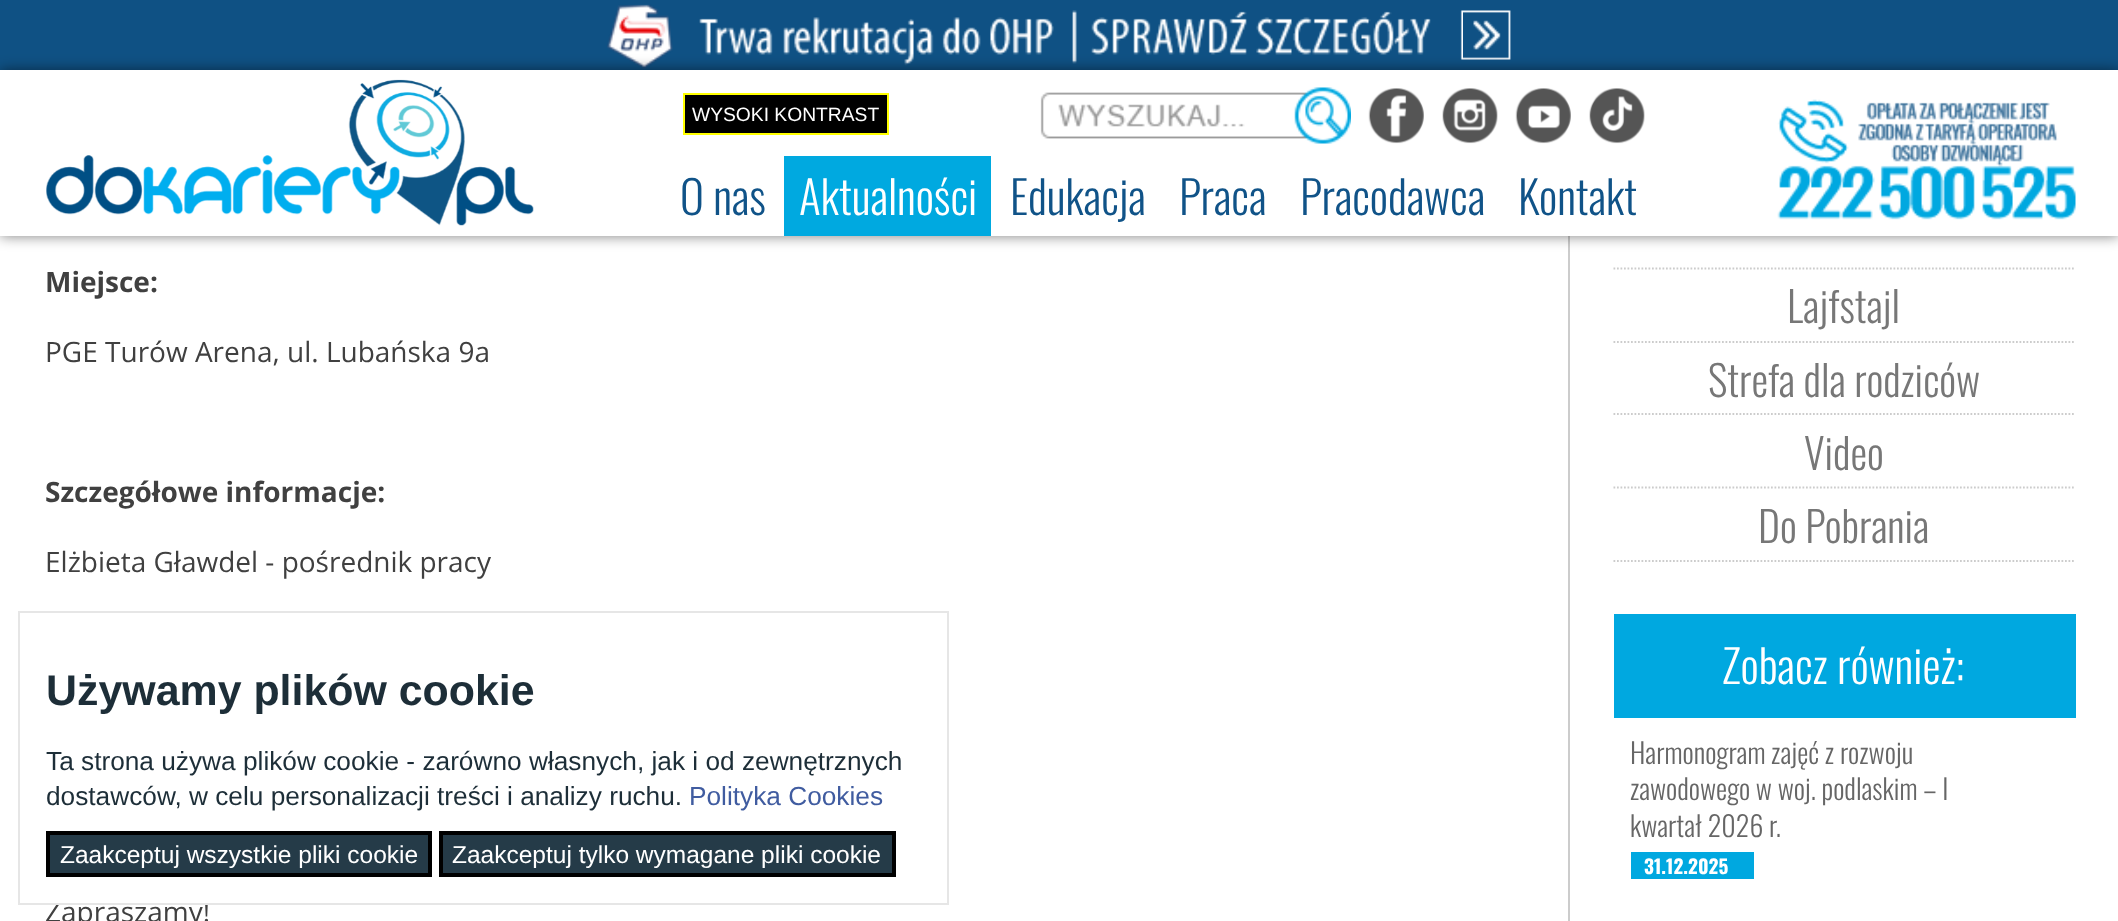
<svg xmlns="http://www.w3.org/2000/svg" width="2118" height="921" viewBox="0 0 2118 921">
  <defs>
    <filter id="blur1" x="-50%" y="-200%" width="200%" height="500%"><feGaussianBlur stdDeviation="7"/></filter>
  </defs>
  <rect width="100%" height="100%" fill="#ffffff"/>
  <rect x="0" y="0" width="2118" height="70" fill="#0f5184"/>
  <image x="607" y="4" width="904" height="65" href="img1.png"/>
  <rect x="1568" y="236" width="2" height="685" fill="#cccccc"/>
  <rect x="0" y="70" width="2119" height="166" fill="#000000" fill-opacity="0.5" filter="url(#blur1)"/>
  <rect x="0" y="70" width="2118" height="166" fill="#ffffff"/>
  <image x="1040" y="87" width="311" height="57" href="img2.png"/>
  <image x="46" y="79" width="488" height="147" href="img3.png"/>
  <rect x="684" y="94" width="204" height="40" fill="#000000" stroke="#ffff00" stroke-width="2"/>
  <text x="692" y="121" font-family="Liberation Sans" font-size="19.25" fill="#ffffff">WYSOKI KONTRAST</text>
  <image x="1368" y="88" width="56" height="56" href="img4.png"/>
  <image x="1442" y="88" width="56" height="56" href="img5.png"/>
  <image x="1515" y="88" width="56" height="56" href="img6.png"/>
  <image x="1589" y="88" width="56" height="56" href="img7.png"/>
  <image x="1777" y="99" width="299" height="121" href="img8.png"/>
  <text x="680" y="215" font-family="Oswald" font-size="45.5" font-weight="300" fill="#105388">O nas</text>
  <rect x="784" y="156" width="207" height="80" fill="#00a9e0"/>
  <text x="799" y="215" font-family="Oswald" font-size="45.5" font-weight="300" fill="#ffffff">Aktualności</text>
  <text x="1010" y="215" font-family="Oswald" font-size="45.5" font-weight="300" fill="#105388">Edukacja</text>
  <text x="1179" y="215" font-family="Oswald" font-size="45.5" font-weight="300" fill="#105388">Praca</text>
  <text x="1300" y="215" font-family="Oswald" font-size="45.5" font-weight="300" fill="#105388">Pracodawca</text>
  <text x="1518" y="215" font-family="Oswald" font-size="45.5" font-weight="300" fill="#105388">Kontakt</text>
  <text x="45" y="292" font-family="Open Sans" font-size="28" font-weight="bold" fill="#404040">Miejsce:</text>
  <text x="45" y="362" font-family="Open Sans" font-size="28" fill="#404040">PGE Turów Arena, ul. Lubańska 9a</text>
  <text x="45" y="502" font-family="Open Sans" font-size="28" font-weight="bold" fill="#404040">Szczegółowe informacje:</text>
  <text x="45" y="572" font-family="Open Sans" font-size="28" fill="#404040">Elżbieta Gławdel - pośrednik pracy</text>
  <text x="45" y="922" font-family="Open Sans" font-size="28" fill="#404040">Zapraszamy!</text>
  <path d="M1613.5 268.5H2075.5" fill="none" stroke="#cccccc" stroke-width="1.8" stroke-dasharray="1.75 1.75"/>
  <path d="M1613.5 342H2075.5" fill="none" stroke="#cccccc" stroke-width="1.8" stroke-dasharray="1.75 1.75"/>
  <text x="1787" y="323" font-family="Oswald" font-size="42" font-weight="300" fill="#777777">Lajfstajl</text>
  <path d="M1613.5 414H2075.5" fill="none" stroke="#cccccc" stroke-width="1.8" stroke-dasharray="1.75 1.75"/>
  <text x="1708" y="397" font-family="Oswald" font-size="42" font-weight="300" fill="#777777">Strefa dla rodziców</text>
  <path d="M1613.5 487.5H2075.5" fill="none" stroke="#cccccc" stroke-width="1.8" stroke-dasharray="1.75 1.75"/>
  <text x="1804" y="470" font-family="Oswald" font-size="42" font-weight="300" fill="#777777">Video</text>
  <path d="M1613.5 561H2075.5" fill="none" stroke="#cccccc" stroke-width="1.8" stroke-dasharray="1.75 1.75"/>
  <text x="1758" y="543" font-family="Oswald" font-size="42" font-weight="300" fill="#777777">Do Pobrania</text>
  <rect x="1614" y="614" width="462" height="104" fill="#00a8e0"/>
  <text x="1722" y="684" font-family="Oswald" font-size="45.5" font-weight="300" fill="#ffffff">Zobacz również:</text>
  <text x="1630" y="764" font-family="Oswald" font-size="28" font-weight="300" fill="#666666">Harmonogram zajęć z rozwoju</text>
  <text x="1630" y="800" font-family="Oswald" font-size="28" font-weight="300" fill="#666666">zawodowego w woj. podlaskim – I</text>
  <text x="1630" y="837" font-family="Oswald" font-size="28" font-weight="300" fill="#666666">kwartał 2026 r.</text>
  <rect x="1631" y="852" width="123" height="27" fill="#00a8e0"/>
  <text x="1644" y="874" font-family="Oswald" font-size="19.25" font-weight="bold" fill="#ffffff">31.12.2025</text>
  <rect x="46" y="902" width="162" height="1" fill="#ffffff"/>
  <rect x="19" y="612" width="929" height="292" fill="none" stroke="#e6e6e6" stroke-width="2"/>
  <text x="46" y="705" font-family="Liberation Sans" font-size="42.9" font-weight="bold" fill="#1d2e38">Używamy plików cookie</text>
  <text x="46" y="770" font-family="Liberation Sans" font-size="26.25" fill="#1d2e38">Ta strona używa plików cookie - zarówno własnych, jak i od zewnętrznych</text>
  <text x="46" y="805" font-family="Liberation Sans" font-size="26.25" fill="#1d2e38">dostawców, w celu personalizacji treści i analizy ruchu.</text>
  <text x="689" y="805" font-family="Liberation Sans" font-size="26.25" fill="#405ca0">Polityka Cookies</text>
  <rect x="48" y="833" width="382" height="42" fill="#253b48" stroke="#000000" stroke-width="4"/>
  <text x="60" y="863" font-family="Liberation Sans" font-size="24.5" fill="#ffffff">Zaakceptuj wszystkie pliki cookie</text>
  <rect x="441" y="833" width="453" height="42" fill="#253b48" stroke="#000000" stroke-width="4"/>
  <text x="452" y="863" font-family="Liberation Sans" font-size="24.5" fill="#ffffff">Zaakceptuj tylko wymagane pliki cookie</text>
</svg>
